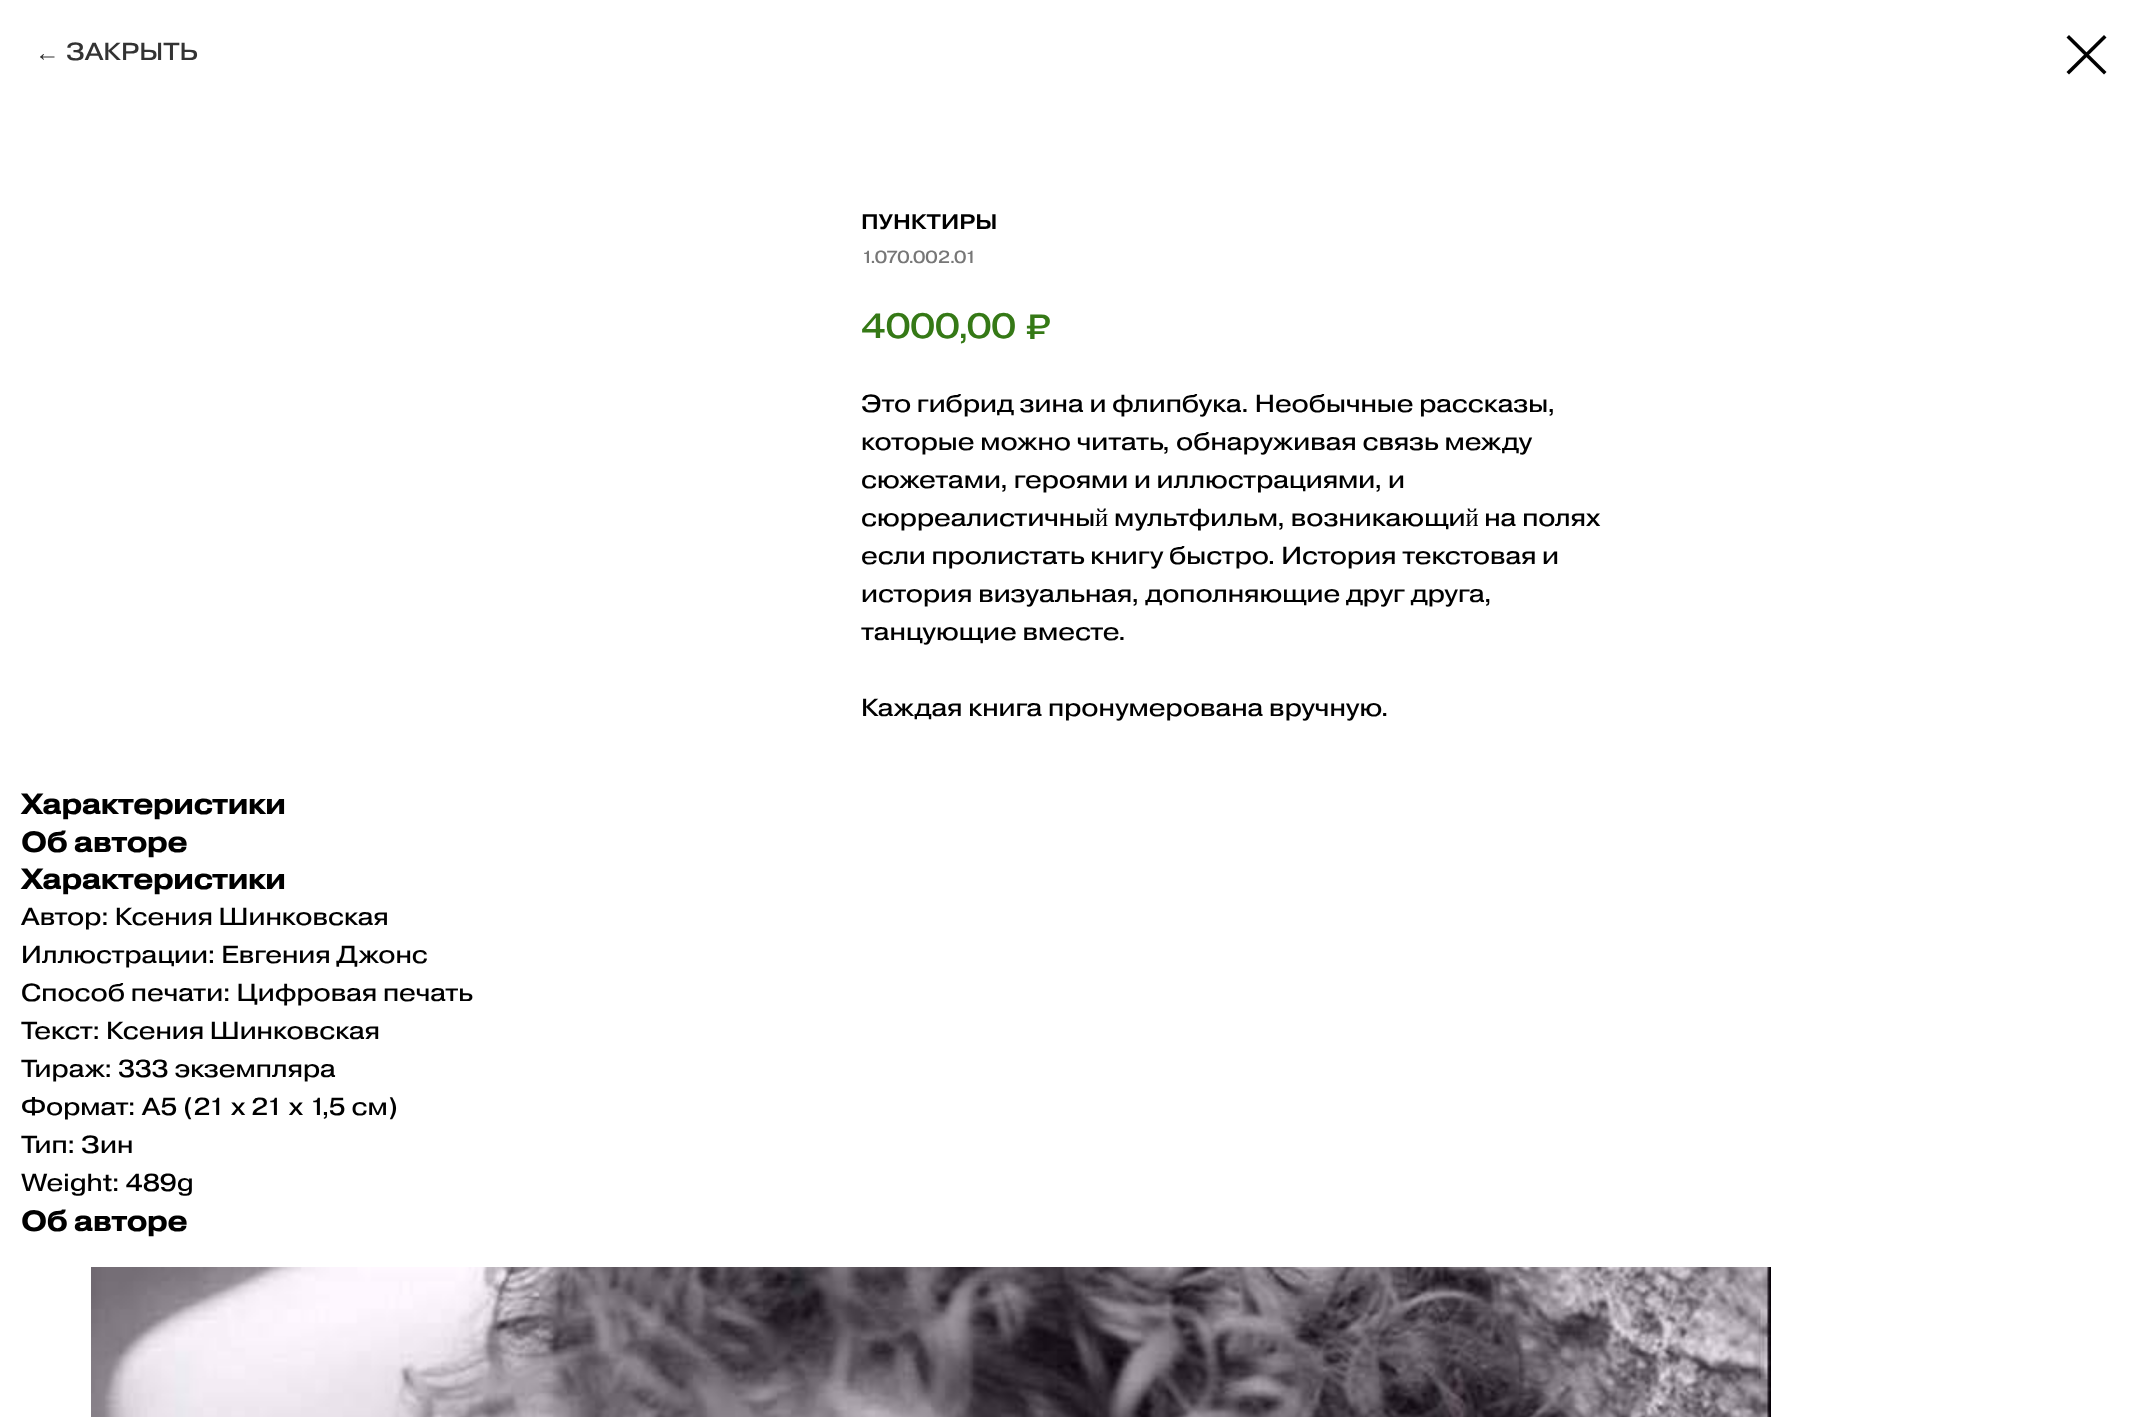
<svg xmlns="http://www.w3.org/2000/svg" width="2141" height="1417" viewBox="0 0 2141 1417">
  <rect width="100%" height="100%" fill="#ffffff"/>
  <text x="35" y="61" font-family="Liberation Sans" font-size="24.5" fill="#333333">←</text>
  <text x="66" y="60" font-family="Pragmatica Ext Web" font-size="24.5" fill="#333333">ЗАКРЫТЬ</text>
  <path d="M2066.5 37.5L2069 35L2106.5 72L2104 74.5Z" fill="#000000" fill-rule="evenodd"/>
  <path d="M2104 35L2106.5 37.5L2069 74.5L2066.5 72Z" fill="#000000" fill-rule="evenodd"/>
  <text x="861" y="229" font-family="Pragmatica Ext Web" font-size="21" font-weight="500" fill="#000000">ПУНКТИРЫ</text>
  <text x="861" y="263" font-family="Pragmatica Ext Web" font-size="17.5" fill="#777777">1.070.002.01</text>
  <text x="861" y="338" font-family="Pragmatica Ext Web" font-size="35" fill="#357916">4000,00</text>
  <text x="1026" y="339" font-family="Pragmatica Ext Web" font-size="35" fill="#357916">₽</text>
  <text x="861" y="412" font-family="Pragmatica Ext Web" font-size="24.5" fill="#000000">Это гибрид зина и флипбука. Необычные рассказы,</text>
  <text x="861" y="450" font-family="Pragmatica Ext Web" font-size="24.5" fill="#000000">которые можно читать, обнаруживая связь между</text>
  <text x="861" y="488" font-family="Pragmatica Ext Web" font-size="24.5" fill="#000000">сюжетами, героями и иллюстрациями, и</text>
  <text x="861" y="526" font-family="Pragmatica Ext Web" font-size="24.5" fill="#000000">сюрреалистичный мультфильм, возникающий на полях</text>
  <text x="861" y="564" font-family="Pragmatica Ext Web" font-size="24.5" fill="#000000">если пролистать книгу быстро. История текстовая и</text>
  <text x="861" y="602" font-family="Pragmatica Ext Web" font-size="24.5" fill="#000000">история визуальная, дополняющие друг друга,</text>
  <text x="861" y="640" font-family="Pragmatica Ext Web" font-size="24.5" fill="#000000">танцующие вместе.</text>
  <text x="861" y="716" font-family="Pragmatica Ext Web" font-size="24.5" fill="#000000">Каждая книга пронумерована вручную.</text>
  <text x="21" y="814" font-family="Pragmatica Ext Web" font-size="28" font-weight="bold" fill="#000000">Характеристики</text>
  <text x="21" y="852" font-family="Pragmatica Ext Web" font-size="28" font-weight="bold" fill="#000000">Об авторе</text>
  <text x="21" y="889" font-family="Pragmatica Ext Web" font-size="28" font-weight="bold" fill="#000000">Характеристики</text>
  <text x="21" y="925" font-family="Pragmatica Ext Web" font-size="24.5" fill="#000000">Автор: Ксения Шинковская</text>
  <text x="21" y="963" font-family="Pragmatica Ext Web" font-size="24.5" fill="#000000">Иллюстрации: Евгения Джонс</text>
  <text x="21" y="1001" font-family="Pragmatica Ext Web" font-size="24.5" fill="#000000">Способ печати: Цифровая печать</text>
  <text x="21" y="1039" font-family="Pragmatica Ext Web" font-size="24.5" fill="#000000">Текст: Ксения Шинковская</text>
  <text x="21" y="1077" font-family="Pragmatica Ext Web" font-size="24.5" fill="#000000">Тираж: 333 экземпляра</text>
  <text x="21" y="1115" font-family="Pragmatica Ext Web" font-size="24.5" fill="#000000">Формат: А5 (21 х 21 х 1,5 см)</text>
  <text x="21" y="1153" font-family="Pragmatica Ext Web" font-size="24.5" fill="#000000">Тип: Зин</text>
  <text x="21" y="1191" font-family="Pragmatica Ext Web" font-size="24.5" fill="#000000">Weight: 489g</text>
  <text x="21" y="1231" font-family="Pragmatica Ext Web" font-size="28" font-weight="bold" fill="#000000">Об авторе</text>
  <image x="91" y="1267" width="1680" height="150" href="img1.png"/>
</svg>
